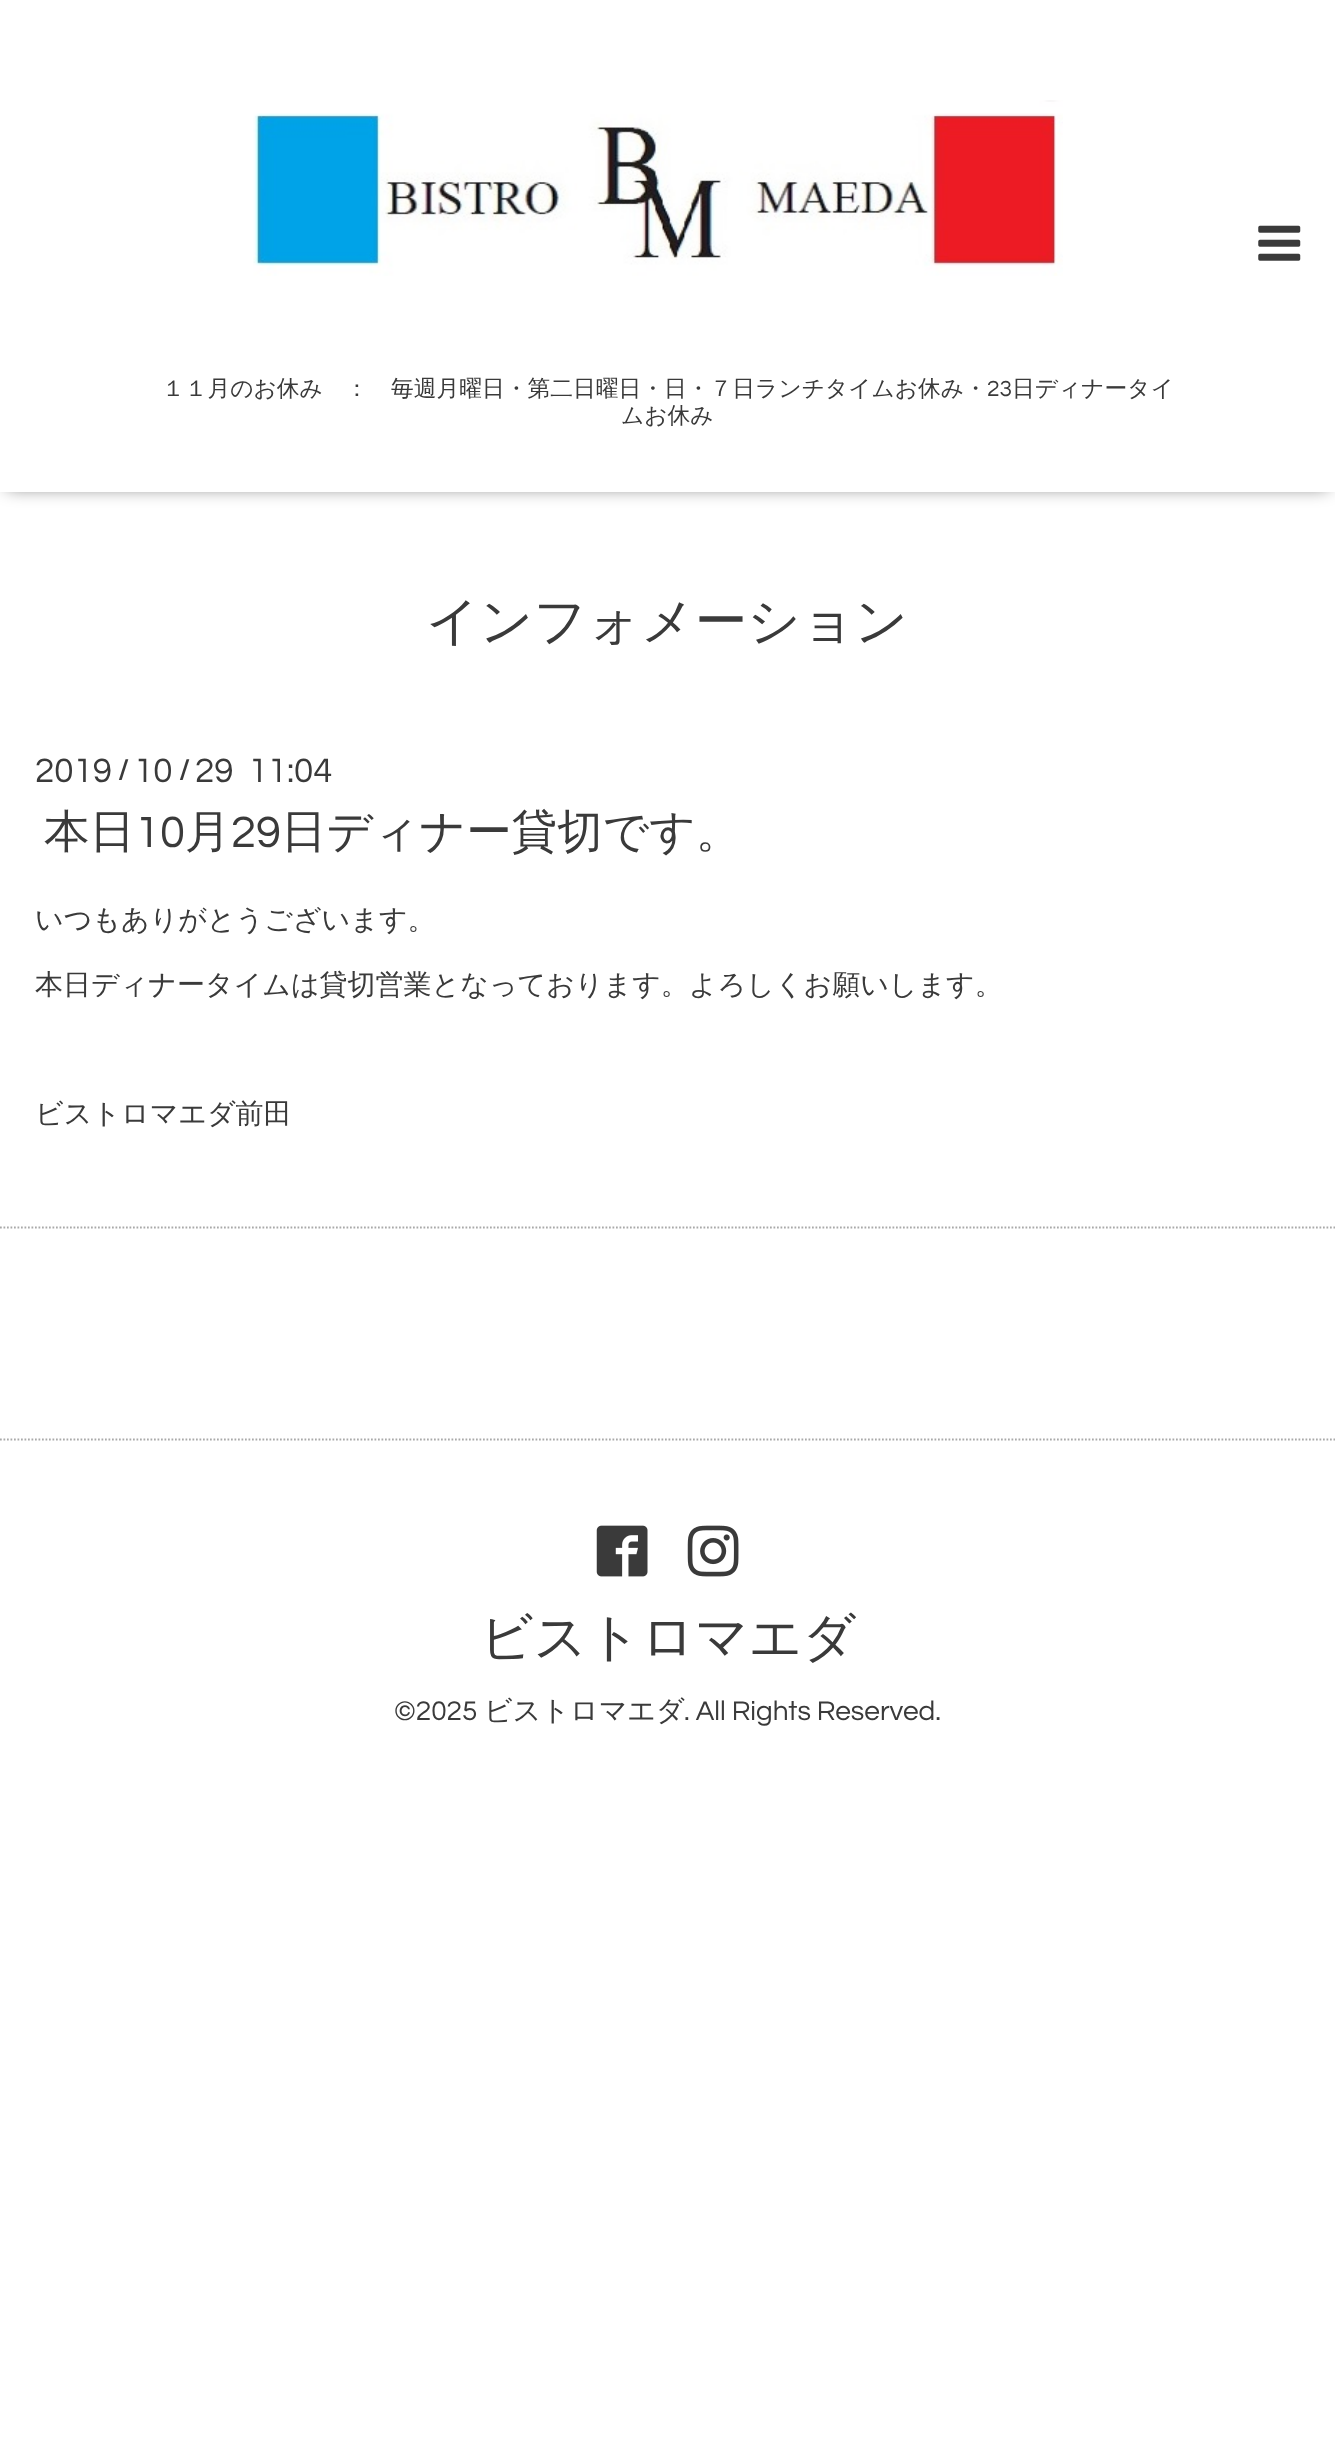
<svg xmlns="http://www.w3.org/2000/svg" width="1335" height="2455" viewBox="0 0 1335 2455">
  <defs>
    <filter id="blur1" x="-50%" y="-200%" width="200%" height="500%"><feGaussianBlur stdDeviation="9"/></filter>
  </defs>
  <rect width="100%" height="100%" fill="#ffffff"/>
  <rect x="7" y="9" width="1321" height="478" fill="#000000" fill-opacity="0.6" filter="url(#blur1)"/>
  <rect x="0" y="0" width="1335" height="492" fill="#ffffff"/>
  <image x="1258" y="225" width="43" height="36" href="img1.png"/>
  <image x="253" y="100" width="810" height="176" href="img2.png"/>
  <text x="162" y="396" font-family="WenQuanYi Zen Hei" font-size="22.75" font-weight="500" fill="#3a3a3a">１１月のお休み　：　毎週月曜日・第二日曜日・日・７日ランチタイムお休み・</text>
  <text x="987" y="396" font-family="Questrial" font-size="22.75" fill="#3a3a3a">23</text>
  <text x="1012" y="396" font-family="WenQuanYi Zen Hei" font-size="22.75" font-weight="500" fill="#3a3a3a">日ディナータイ</text>
  <text x="621" y="423" font-family="WenQuanYi Zen Hei" font-size="22.75" font-weight="500" fill="#3a3a3a">ムお休み</text>
  <text x="426" y="639" font-family="WenQuanYi Zen Hei" font-size="52.5" font-weight="500" fill="#3a3a3a">インフォメーション</text>
  <text x="35" y="782" font-family="Questrial" font-size="35" fill="#3a3a3a">2019</text>
  <text x="118" y="779" font-family="Questrial" font-size="28" font-weight="bold" fill="#3a3a3a">/</text>
  <text x="134" y="782" font-family="Questrial" font-size="35" fill="#3a3a3a">10</text>
  <text x="179" y="779" font-family="Questrial" font-size="28" font-weight="bold" fill="#3a3a3a">/</text>
  <text x="195" y="782" font-family="Questrial" font-size="35" fill="#3a3a3a" xml:space="preserve">29  11:04</text>
  <text x="44" y="847" font-family="WenQuanYi Zen Hei" font-size="45.5" font-weight="500" fill="#3a3a3a">本日</text>
  <text x="135" y="847" font-family="Questrial" font-size="45.5" fill="#3a3a3a">10</text>
  <text x="185" y="847" font-family="WenQuanYi Zen Hei" font-size="45.5" font-weight="500" fill="#3a3a3a">月</text>
  <text x="231" y="847" font-family="Questrial" font-size="45.5" fill="#3a3a3a">29</text>
  <text x="281" y="847" font-family="WenQuanYi Zen Hei" font-size="45.5" font-weight="500" fill="#3a3a3a">日ディナー貸切です。</text>
  <text x="35" y="929" font-family="WenQuanYi Zen Hei" font-size="28" font-weight="500" fill="#3a3a3a">いつもありがとうございます。</text>
  <text x="35" y="994" font-family="WenQuanYi Zen Hei" font-size="28" font-weight="500" fill="#3a3a3a">本日ディナータイムは貸切営業となっております。よろしくお願いします。</text>
  <text x="35" y="1123" font-family="WenQuanYi Zen Hei" font-size="28" font-weight="500" fill="#3a3a3a">ビストロマエダ前田</text>
  <path d="M0 1227.5H1335" fill="none" stroke="#a9a9a9" stroke-width="1.8" stroke-dasharray="1.75 1.75"/>
  <path d="M0 1439.5H1335" fill="none" stroke="#a9a9a9" stroke-width="1.8" stroke-dasharray="1.75 1.75"/>
  <image x="596" y="1525" width="52" height="52" href="img3.png"/>
  <image x="687" y="1525" width="52" height="52" href="img4.png"/>
  <text x="480" y="1655" font-family="WenQuanYi Zen Hei" font-size="52.5" font-weight="500" fill="#3a3a3a">ビストロマエダ</text>
  <text x="394" y="1720" font-family="Questrial" font-size="28" fill="#3a3a3a">©2025</text>
  <text x="484" y="1720" font-family="WenQuanYi Zen Hei" font-size="28" font-weight="500" fill="#3a3a3a">ビストロマエダ</text>
  <text x="684" y="1720" font-family="Questrial" font-size="28" fill="#3a3a3a">. All Rights Reserved.</text>
</svg>
